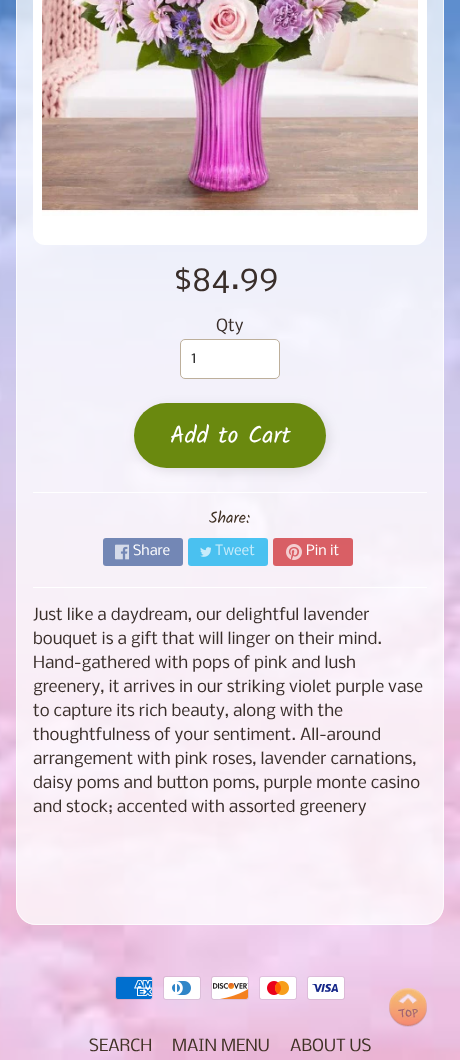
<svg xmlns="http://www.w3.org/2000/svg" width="460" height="1060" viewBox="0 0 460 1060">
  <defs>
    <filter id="blur1" x="-50%" y="-200%" width="200%" height="500%"><feGaussianBlur stdDeviation="6"/></filter>
  </defs>
  <rect width="100%" height="100%" fill="#ffffff"/>
  <image x="0" y="0" width="460" height="1060" href="img1.png"/>
  <rect x="16" y="-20" width="428" height="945" rx="20" fill="#ffffff" fill-opacity="0.75"/>
  <rect x="16.5" y="-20.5" width="427" height="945" rx="19.5" fill="none" stroke="#ffffff" stroke-opacity="0.7"/>
  <rect x="33" y="-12" width="394" height="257" rx="12" fill="#ffffff"/>
  <image x="42" y="0" width="376" height="216" href="img2.png"/>
  <text x="174" y="289" font-family="Nobile" font-size="32" fill="#392e2a">$84.99</text>
  <text x="216" y="331" font-family="Nobile" font-size="16" fill="#392e2a">Qty</text>
  <rect x="180.5" y="339.5" width="99" height="39" rx="4.5" fill="#ffffff" stroke="#bdaf9b"/>
  <text x="191" y="363" font-family="Nobile" font-size="16" fill="#333333">1</text>
  <rect x="137" y="406" width="192" height="65" rx="32.5" fill="#000000" fill-opacity="0.1" filter="url(#blur1)"/>
  <rect x="134" y="403" width="192" height="65" rx="32.5" fill="#6a890f"/>
  <text x="170" y="443" font-family="Kalam" font-size="24" fill="#ffffff">Add to Cart</text>
  <rect x="33" y="492" width="394" height="1" fill="#ffffff"/>
  <text x="209" y="523" font-family="Kalam" font-size="16" fill="#403125">Share:</text>
  <rect x="103" y="538" width="80" height="28" rx="3" fill="#7387b5"/>
  <image x="115" y="544" width="14" height="16" href="img3.png"/>
  <text x="133" y="555" font-family="Nobile" font-size="13.5" fill="#ffffff">Share</text>
  <rect x="188" y="538" width="80" height="28" rx="3" fill="#00aced" fill-opacity="0.7"/>
  <image x="200" y="547" width="11" height="10" href="img4.png"/>
  <text x="215" y="555" font-family="Nobile" font-size="13.5" fill="#c9ecfb">Tweet</text>
  <rect x="273" y="538" width="80" height="28" rx="3" fill="#cc2127" fill-opacity="0.7"/>
  <image x="286" y="544" width="16" height="16" href="img5.png"/>
  <text x="306" y="555" font-family="Nobile" font-size="13.5" fill="#ffffff">Pin it</text>
  <rect x="33" y="587" width="394" height="1" fill="#ffffff"/>
  <text x="33" y="620" font-family="Nobile" font-size="16" fill="#392e2a">Just like a daydream, our delightful lavender</text>
  <text x="33" y="644" font-family="Nobile" font-size="16" fill="#392e2a">bouquet is a gift that will linger on their mind.</text>
  <text x="33" y="668" font-family="Nobile" font-size="16" fill="#392e2a">Hand-gathered with pops of pink and lush</text>
  <text x="33" y="692" font-family="Nobile" font-size="16" fill="#392e2a">greenery, it arrives in our striking violet purple vase</text>
  <text x="33" y="716" font-family="Nobile" font-size="16" fill="#392e2a">to capture its rich beauty, along with the</text>
  <text x="33" y="740" font-family="Nobile" font-size="16" fill="#392e2a">thoughtfulness of your sentiment. All-around</text>
  <text x="33" y="764" font-family="Nobile" font-size="16" fill="#392e2a">arrangement with pink roses, lavender carnations,</text>
  <text x="33" y="788" font-family="Nobile" font-size="16" fill="#392e2a">daisy poms and button poms, purple monte casino</text>
  <text x="33" y="812" font-family="Nobile" font-size="16" fill="#392e2a">and stock; accented with assorted greenery</text>
  <image x="115" y="976" width="38" height="24" href="img6.png"/>
  <image x="163" y="976" width="38" height="24" href="img7.png"/>
  <image x="211" y="976" width="38" height="24" href="img8.png"/>
  <image x="259" y="976" width="38" height="24" href="img9.png"/>
  <image x="307" y="976" width="38" height="24" href="img10.png"/>
  <image x="389" y="988" width="38" height="39" href="img11.png"/>
  <text x="89" y="1051" font-family="Nobile" font-size="16" fill="#403125">SEARCH</text>
  <text x="172" y="1051" font-family="Nobile" font-size="16" fill="#403125">MAIN MENU</text>
  <text x="290" y="1051" font-family="Nobile" font-size="16" fill="#403125">ABOUT US</text>
</svg>
